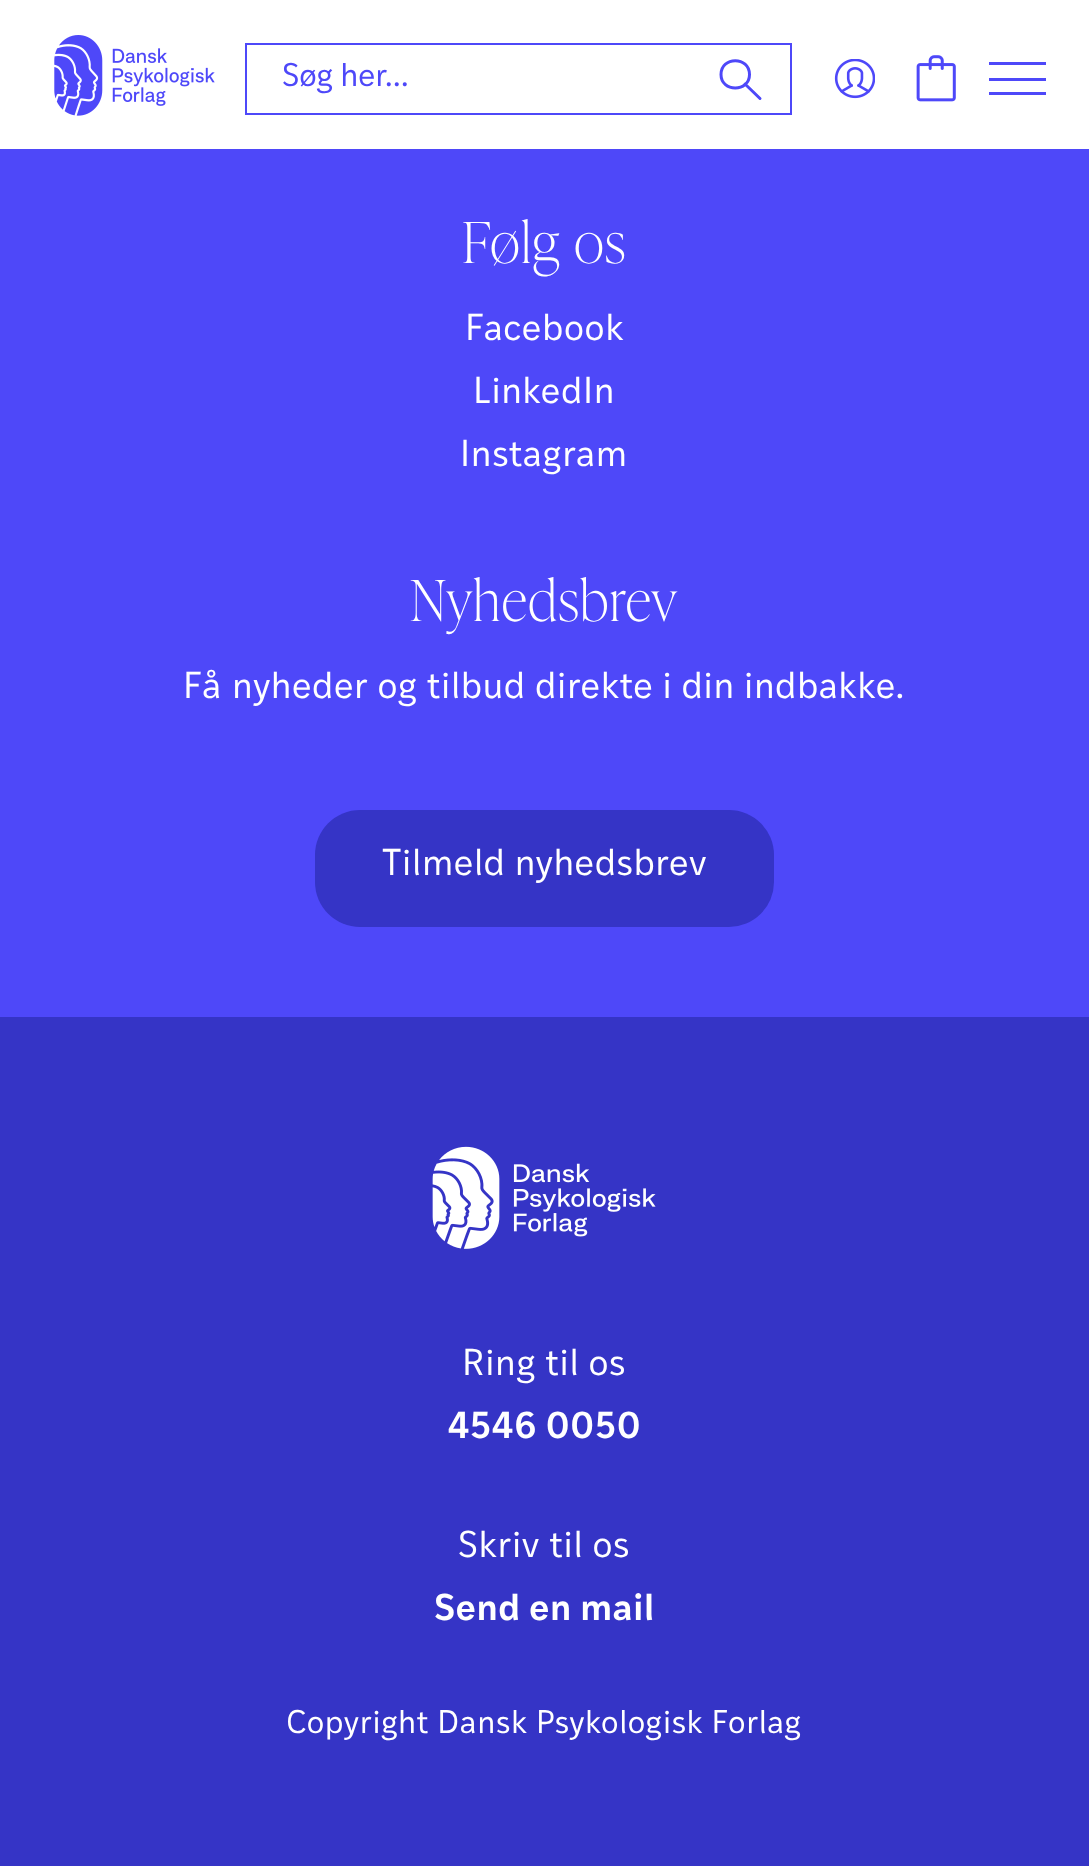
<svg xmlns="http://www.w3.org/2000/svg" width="1089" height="1866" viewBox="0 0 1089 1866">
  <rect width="100%" height="100%" fill="#4e48f9"/>
  <rect x="0" y="0" width="1089" height="149" fill="#ffffff"/>
  <image x="54" y="35" width="161" height="81" href="img1.png"/>
  <rect x="246" y="44" width="545" height="70" fill="none" stroke="#4e48f9" stroke-width="2"/>
  <text x="282" y="86" font-family="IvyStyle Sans" font-size="31.5" fill="#4e48f9">Søg her...</text>
  <path d="M749.5 74.5C749.5 56 721 56 721 74.5C721 92.5 749.5 92.5 749.5 74.5ZM745 84L760 98.5" fill="none" stroke="#4e48f9" stroke-width="3" stroke-linecap="round" stroke-linejoin="round"/>
  <image x="834" y="59" width="41" height="40" href="img2.png"/>
  <image x="916" y="55" width="40" height="47" href="img3.png"/>
  <rect x="989" y="62" width="57" height="3" fill="#4e48f9"/>
  <rect x="989" y="78" width="57" height="3" fill="#4e48f9"/>
  <rect x="989" y="92" width="57" height="3" fill="#4e48f9"/>
  <text x="462" y="263" font-family="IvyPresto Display" font-size="56.25" font-weight="100" letter-spacing="1.1" fill="#ffffff">Følg os</text>
  <text x="465" y="340" font-family="IvyStyle Sans" font-size="36" letter-spacing="0.7" fill="#ffffff">Facebook</text>
  <text x="473" y="403" font-family="IvyStyle Sans" font-size="36" letter-spacing="0.7" fill="#ffffff">LinkedIn</text>
  <text x="460" y="466" font-family="IvyStyle Sans" font-size="36" letter-spacing="0.7" fill="#ffffff">Instagram</text>
  <text x="410" y="621" font-family="IvyPresto Display" font-size="56.25" font-weight="100" letter-spacing="1.1" fill="#ffffff">Nyhedsbrev</text>
  <text x="183" y="698" font-family="IvyStyle Sans" font-size="36" letter-spacing="0.7" fill="#ffffff">Få nyheder og tilbud direkte i din indbakke.</text>
  <rect x="315" y="810" width="459" height="117" rx="45" fill="#3534c6"/>
  <text x="382" y="875" font-family="IvyStyle Sans" font-size="36" letter-spacing="0.7" fill="#ffffff">Tilmeld nyhedsbrev</text>
  <rect x="0" y="1017" width="1089" height="849" fill="#3534c6"/>
  <image x="432" y="1146" width="224" height="103" href="img4.png"/>
  <text x="462" y="1375" font-family="IvyStyle Sans" font-size="36" letter-spacing="0.7" fill="#ffffff">Ring til os</text>
  <text x="447" y="1438" font-family="IvyStyle Sans" font-size="36" font-weight="600" letter-spacing="0.7" fill="#ffffff">4546 0050</text>
  <text x="458" y="1557" font-family="IvyStyle Sans" font-size="36" letter-spacing="0.7" fill="#ffffff">Skriv til os</text>
  <text x="434" y="1620" font-family="IvyStyle Sans" font-size="36" font-weight="600" letter-spacing="0.7" fill="#ffffff">Send en mail</text>
  <text x="286" y="1733" font-family="IvyStyle Sans" font-size="31.5" letter-spacing="0.7" fill="#ffffff">Copyright Dansk Psykologisk Forlag</text>
</svg>
